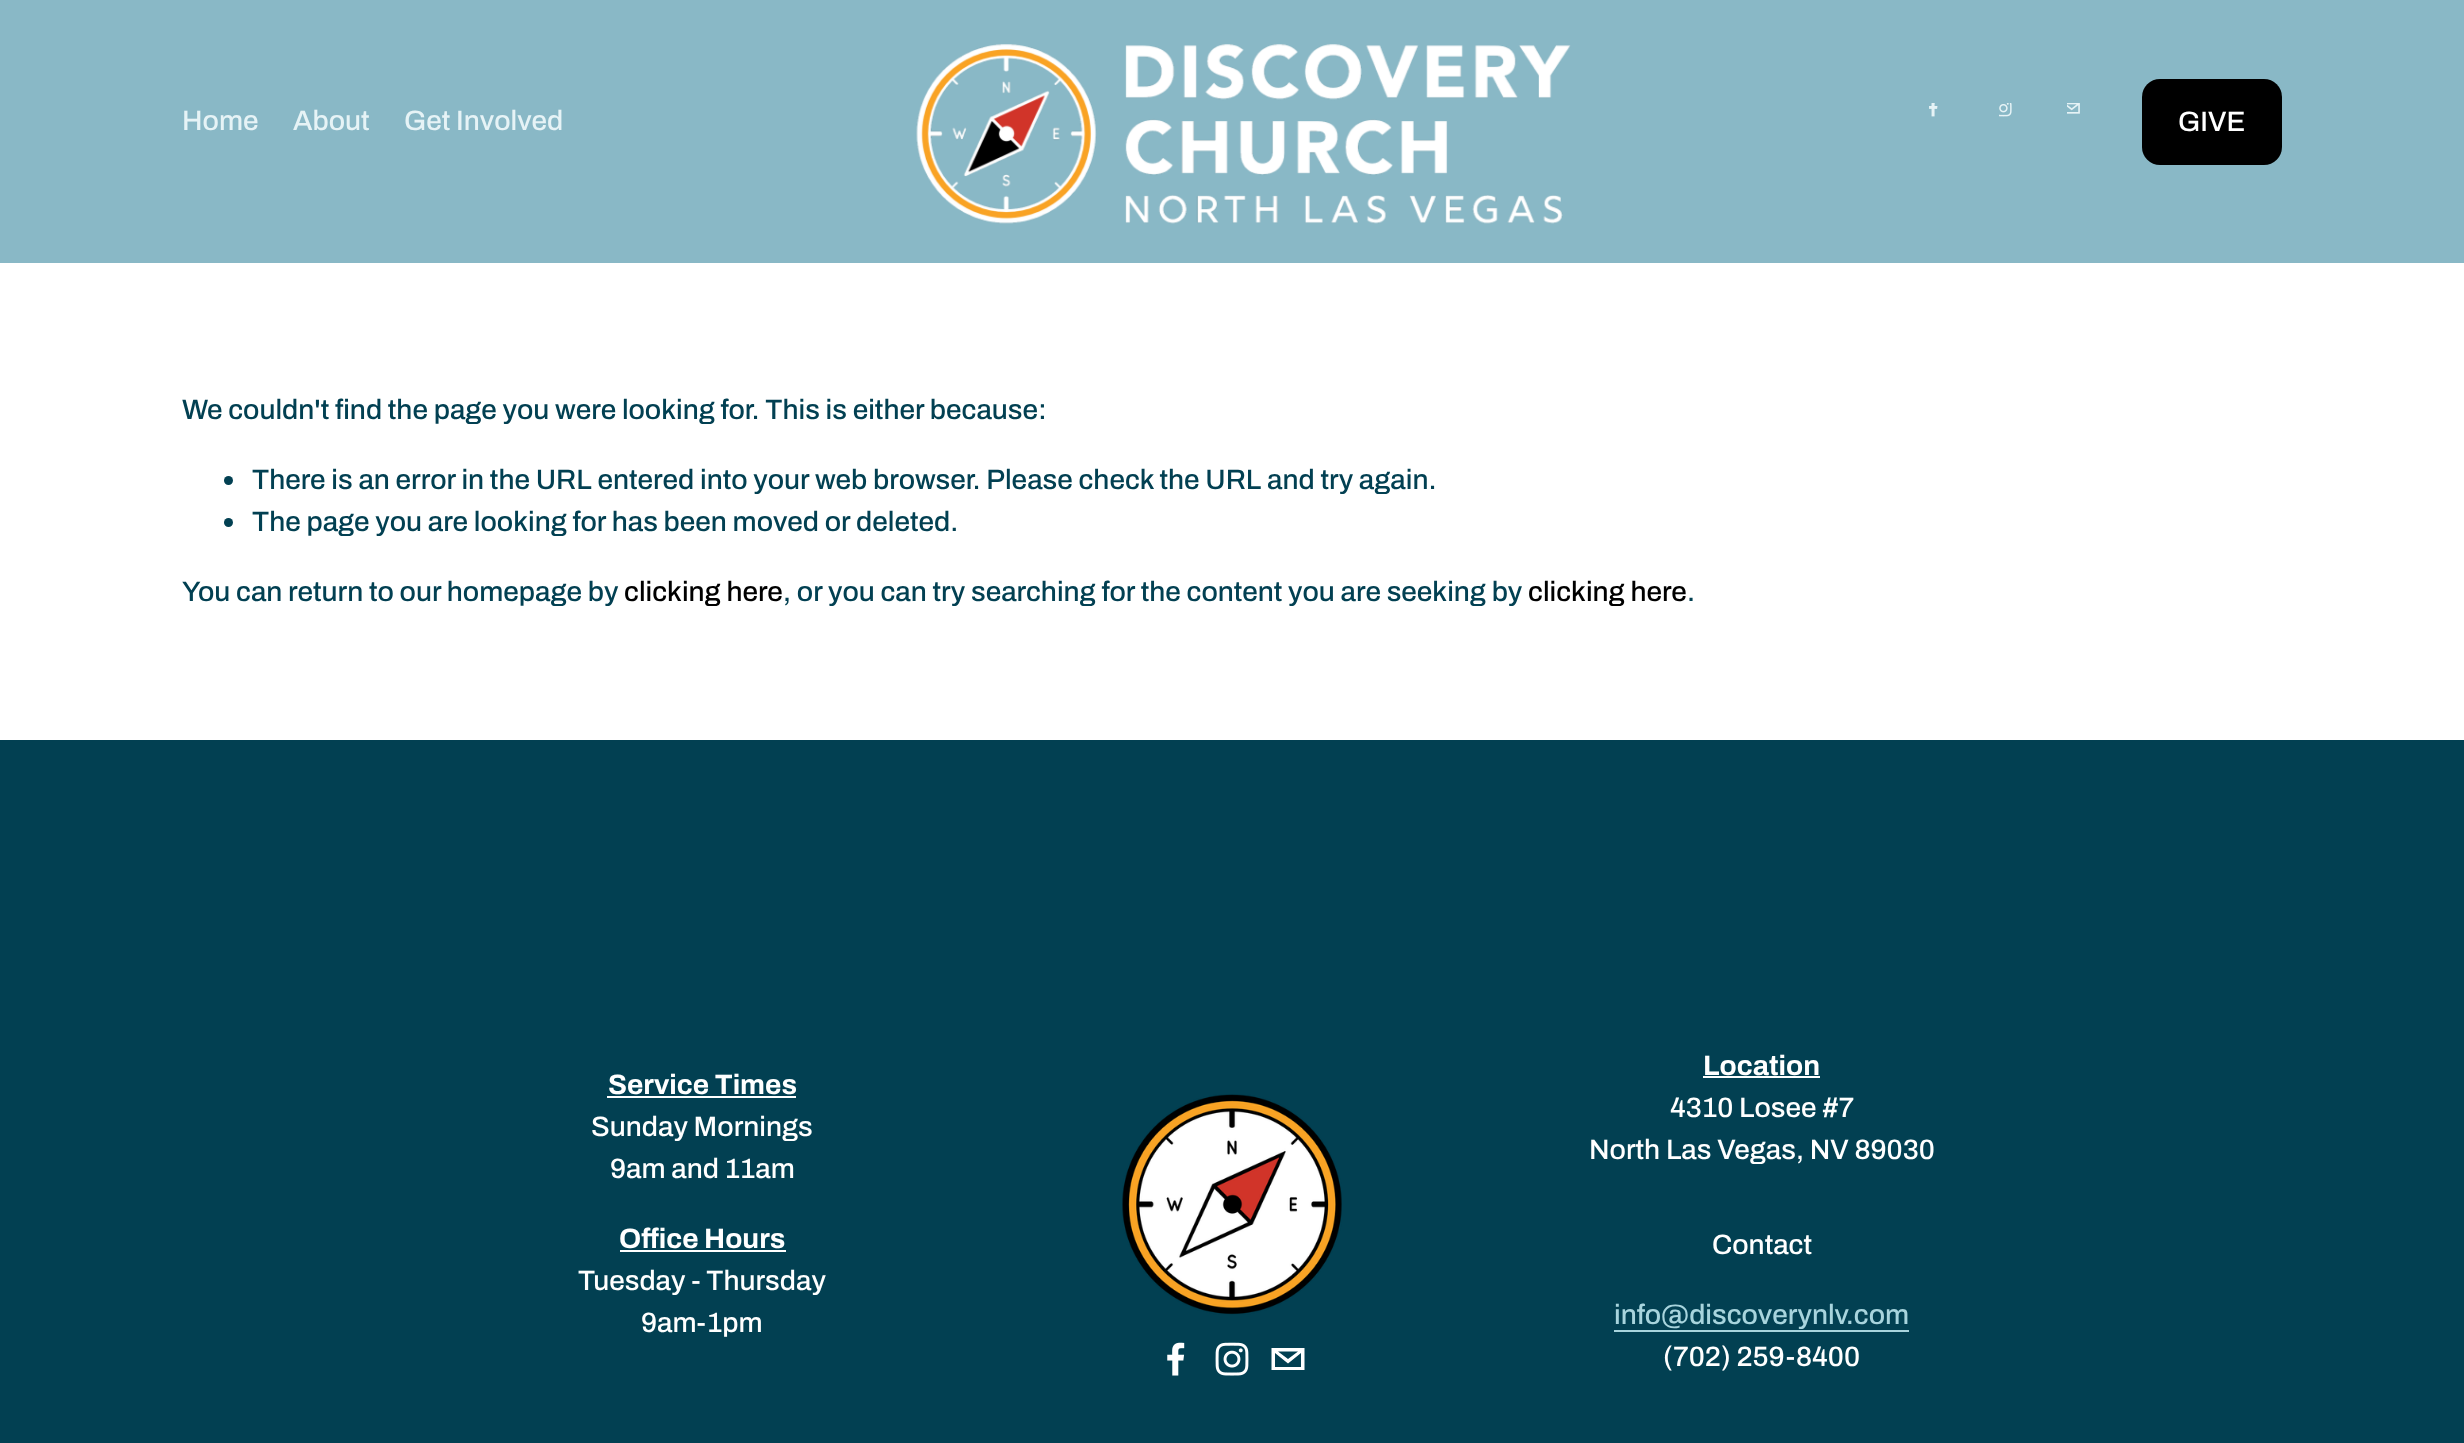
<svg xmlns="http://www.w3.org/2000/svg" width="2464" height="1443" viewBox="0 0 2464 1443">
  <rect width="100%" height="100%" fill="#ffffff"/>
  <rect x="0" y="0" width="2464" height="263" fill="#89b8c6"/>
  <text x="182" y="130" font-family="Archivo" font-size="28" font-weight="500" fill="#e6f3f6">Home</text>
  <text x="293" y="130" font-family="Archivo" font-size="28" font-weight="500" fill="#e6f3f6">About</text>
  <text x="404" y="130" font-family="Archivo" font-size="28" font-weight="500" fill="#e6f3f6">Get Involved</text>
  <image x="916" y="44" width="655" height="180" href="img1.png"/>
  <image x="1929" y="103" width="9" height="14" href="img2.png"/>
  <image x="1999" y="103" width="13" height="14" href="img3.png"/>
  <image x="2067" y="103" width="13" height="11" href="img4.png"/>
  <rect x="2142" y="79" width="140" height="86" rx="18" fill="#000000"/>
  <text x="2178" y="131" font-family="Archivo" font-size="28" font-weight="500" fill="#ffffff">GIVE</text>
  <text x="182" y="419" font-family="Archivo" font-size="28" font-weight="500" fill="#024052">We couldn't find the page you were looking for. This is either because:</text>
  <circle cx="228.5" cy="480.5" r="4.5" fill="#024052"/>
  <text x="252" y="489" font-family="Archivo" font-size="28" font-weight="500" fill="#024052">There is an error in the URL entered into your web browser. Please check the URL and try again.</text>
  <circle cx="228.5" cy="522.5" r="4.5" fill="#024052"/>
  <text x="252" y="531" font-family="Archivo" font-size="28" font-weight="500" fill="#024052">The page you are looking for has been moved or deleted.</text>
  <text x="182" y="601" font-family="Archivo" font-size="28" font-weight="500" fill="#024052">You can return to our homepage by</text>
  <text x="624" y="601" font-family="Archivo" font-size="28" font-weight="500" fill="#000000">clicking here</text>
  <text x="783" y="601" font-family="Archivo" font-size="28" font-weight="500" fill="#024052">, or you can try searching for the content you are seeking by</text>
  <text x="1528" y="601" font-family="Archivo" font-size="28" font-weight="500" fill="#000000">clicking here</text>
  <text x="1687" y="601" font-family="Archivo" font-size="28" font-weight="500" fill="#024052">.</text>
  <rect x="0" y="740" width="2464" height="703" fill="#024052"/>
  <text x="608" y="1094" font-family="Archivo" font-size="28" font-weight="bold" fill="#ffffff">Service Times</text>
  <rect x="607" y="1096" width="189" height="2" fill="#ffffff"/>
  <text x="591" y="1136" font-family="Archivo" font-size="28" font-weight="500" fill="#ffffff">Sunday Mornings</text>
  <text x="610" y="1178" font-family="Archivo" font-size="28" font-weight="500" fill="#ffffff">9am and 11am</text>
  <text x="619" y="1248" font-family="Archivo" font-size="28" font-weight="bold" fill="#ffffff">Office Hours</text>
  <rect x="620" y="1250" width="166" height="2" fill="#ffffff"/>
  <text x="578" y="1290" font-family="Archivo" font-size="28" font-weight="500" fill="#ffffff">Tuesday - Thursday</text>
  <text x="641" y="1332" font-family="Archivo" font-size="28" font-weight="500" fill="#ffffff">9am-1pm</text>
  <image x="1122" y="1094" width="220" height="221" href="img5.png"/>
  <text x="1703" y="1075" font-family="Archivo" font-size="28" font-weight="bold" fill="#ffffff">Location</text>
  <rect x="1703" y="1076" width="117" height="2" fill="#ffffff"/>
  <text x="1670" y="1117" font-family="Archivo" font-size="28" font-weight="500" fill="#ffffff">4310 Losee #7</text>
  <text x="1589" y="1159" font-family="Archivo" font-size="28" font-weight="500" fill="#ffffff">North Las Vegas, NV 89030</text>
  <image x="1167" y="1342" width="18" height="34" href="img6.png"/>
  <image x="1215" y="1342" width="34" height="34" href="img7.png"/>
  <path d="M1271.5 1348V1370H1304.5V1348ZM1298 1351.5L1288 1359L1278 1351.5ZM1275 1367V1353L1288 1363.5L1301 1353V1367Z" fill="#ffffff"/>
  <text x="1712" y="1254" font-family="Archivo" font-size="28" font-weight="500" fill="#ffffff">Contact</text>
  <text x="1614" y="1324" font-family="Archivo" font-size="28" font-weight="500" fill="#a8d4dd">info@discoverynlv.com</text>
  <rect x="1614" y="1330" width="295" height="2" fill="#a8d4dd"/>
  <text x="1663" y="1366" font-family="Archivo" font-size="28" font-weight="500" fill="#ffffff">(702) 259-8400</text>
</svg>
